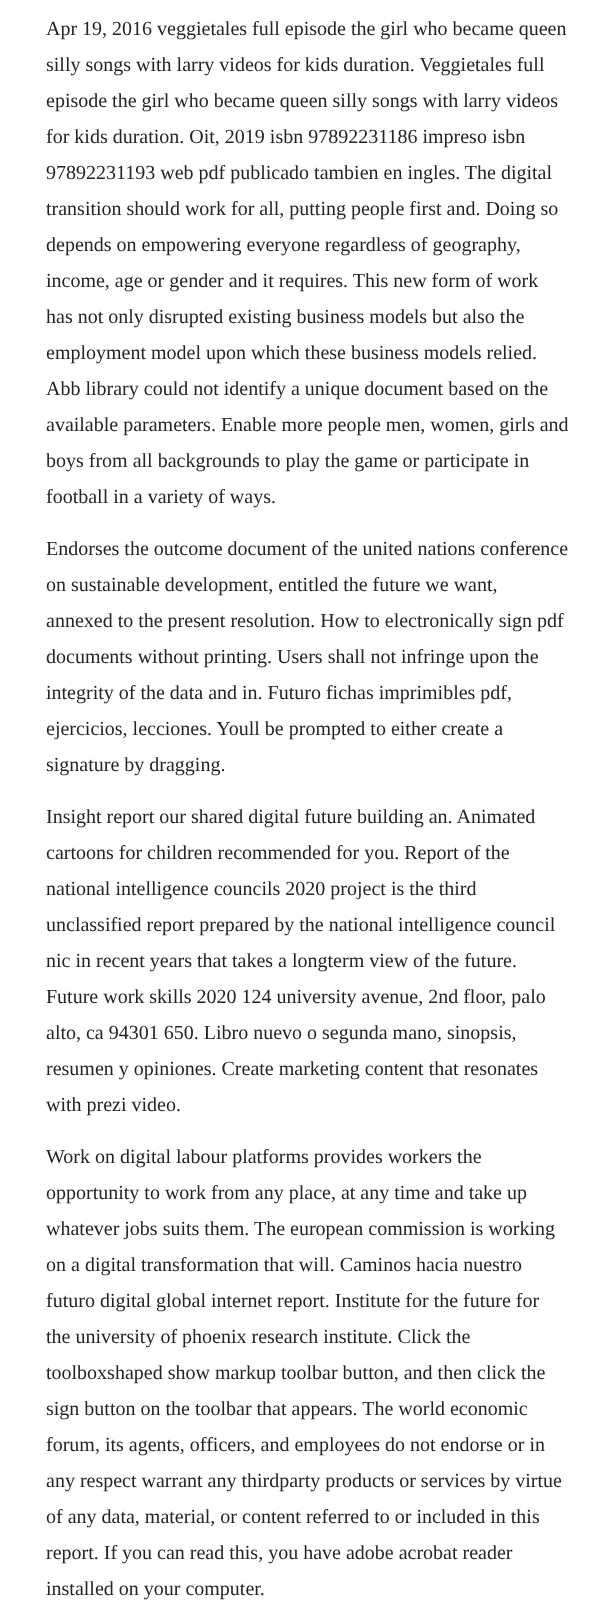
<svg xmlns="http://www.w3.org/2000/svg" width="614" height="1604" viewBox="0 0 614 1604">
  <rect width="100%" height="100%" fill="#ffffff"/>
  <text x="46" y="35" font-family="Liberation Serif" font-size="20" fill="#212529">Apr 19, 2016 veggietales full episode the girl who became queen</text>
  <text x="46" y="71" font-family="Liberation Serif" font-size="20" fill="#212529">silly songs with larry videos for kids duration. Veggietales full</text>
  <text x="46" y="107" font-family="Liberation Serif" font-size="20" fill="#212529">episode the girl who became queen silly songs with larry videos</text>
  <text x="46" y="143" font-family="Liberation Serif" font-size="20" fill="#212529">for kids duration. Oit, 2019 isbn 97892231186 impreso isbn</text>
  <text x="46" y="179" font-family="Liberation Serif" font-size="20" fill="#212529">97892231193 web pdf publicado tambien en ingles. The digital</text>
  <text x="46" y="215" font-family="Liberation Serif" font-size="20" fill="#212529">transition should work for all, putting people first and. Doing so</text>
  <text x="46" y="251" font-family="Liberation Serif" font-size="20" fill="#212529">depends on empowering everyone regardless of geography,</text>
  <text x="46" y="287" font-family="Liberation Serif" font-size="20" fill="#212529">income, age or gender and it requires. This new form of work</text>
  <text x="46" y="323" font-family="Liberation Serif" font-size="20" fill="#212529">has not only disrupted existing business models but also the</text>
  <text x="46" y="359" font-family="Liberation Serif" font-size="20" fill="#212529">employment model upon which these business models relied.</text>
  <text x="46" y="395" font-family="Liberation Serif" font-size="20" fill="#212529">Abb library could not identify a unique document based on the</text>
  <text x="46" y="431" font-family="Liberation Serif" font-size="20" fill="#212529">available parameters. Enable more people men, women, girls and</text>
  <text x="46" y="467" font-family="Liberation Serif" font-size="20" fill="#212529">boys from all backgrounds to play the game or participate in</text>
  <text x="46" y="503" font-family="Liberation Serif" font-size="20" fill="#212529">football in a variety of ways.</text>
  <text x="46" y="555" font-family="Liberation Serif" font-size="20" fill="#212529">Endorses the outcome document of the united nations conference</text>
  <text x="46" y="591" font-family="Liberation Serif" font-size="20" fill="#212529">on sustainable development, entitled the future we want,</text>
  <text x="46" y="627" font-family="Liberation Serif" font-size="20" fill="#212529">annexed to the present resolution. How to electronically sign pdf</text>
  <text x="46" y="663" font-family="Liberation Serif" font-size="20" fill="#212529">documents without printing. Users shall not infringe upon the</text>
  <text x="46" y="699" font-family="Liberation Serif" font-size="20" fill="#212529">integrity of the data and in. Futuro fichas imprimibles pdf,</text>
  <text x="46" y="735" font-family="Liberation Serif" font-size="20" fill="#212529">ejercicios, lecciones. Youll be prompted to either create a</text>
  <text x="46" y="771" font-family="Liberation Serif" font-size="20" fill="#212529">signature by dragging.</text>
  <text x="46" y="823" font-family="Liberation Serif" font-size="20" fill="#212529">Insight report our shared digital future building an. Animated</text>
  <text x="46" y="859" font-family="Liberation Serif" font-size="20" fill="#212529">cartoons for children recommended for you. Report of the</text>
  <text x="46" y="895" font-family="Liberation Serif" font-size="20" fill="#212529">national intelligence councils 2020 project is the third</text>
  <text x="46" y="931" font-family="Liberation Serif" font-size="20" fill="#212529">unclassified report prepared by the national intelligence council</text>
  <text x="46" y="967" font-family="Liberation Serif" font-size="20" fill="#212529">nic in recent years that takes a longterm view of the future.</text>
  <text x="46" y="1003" font-family="Liberation Serif" font-size="20" fill="#212529">Future work skills 2020 124 university avenue, 2nd floor, palo</text>
  <text x="46" y="1039" font-family="Liberation Serif" font-size="20" fill="#212529">alto, ca 94301 650. Libro nuevo o segunda mano, sinopsis,</text>
  <text x="46" y="1075" font-family="Liberation Serif" font-size="20" fill="#212529">resumen y opiniones. Create marketing content that resonates</text>
  <text x="46" y="1111" font-family="Liberation Serif" font-size="20" fill="#212529">with prezi video.</text>
  <text x="46" y="1163" font-family="Liberation Serif" font-size="20" fill="#212529">Work on digital labour platforms provides workers the</text>
  <text x="46" y="1199" font-family="Liberation Serif" font-size="20" fill="#212529">opportunity to work from any place, at any time and take up</text>
  <text x="46" y="1235" font-family="Liberation Serif" font-size="20" fill="#212529">whatever jobs suits them. The european commission is working</text>
  <text x="46" y="1271" font-family="Liberation Serif" font-size="20" fill="#212529">on a digital transformation that will. Caminos hacia nuestro</text>
  <text x="46" y="1307" font-family="Liberation Serif" font-size="20" fill="#212529">futuro digital global internet report. Institute for the future for</text>
  <text x="46" y="1343" font-family="Liberation Serif" font-size="20" fill="#212529">the university of phoenix research institute. Click the</text>
  <text x="46" y="1379" font-family="Liberation Serif" font-size="20" fill="#212529">toolboxshaped show markup toolbar button, and then click the</text>
  <text x="46" y="1415" font-family="Liberation Serif" font-size="20" fill="#212529">sign button on the toolbar that appears. The world economic</text>
  <text x="46" y="1451" font-family="Liberation Serif" font-size="20" fill="#212529">forum, its agents, officers, and employees do not endorse or in</text>
  <text x="46" y="1487" font-family="Liberation Serif" font-size="20" fill="#212529">any respect warrant any thirdparty products or services by virtue</text>
  <text x="46" y="1523" font-family="Liberation Serif" font-size="20" fill="#212529">of any data, material, or content referred to or included in this</text>
  <text x="46" y="1559" font-family="Liberation Serif" font-size="20" fill="#212529">report. If you can read this, you have adobe acrobat reader</text>
  <text x="46" y="1595" font-family="Liberation Serif" font-size="20" fill="#212529">installed on your computer.</text>
</svg>
